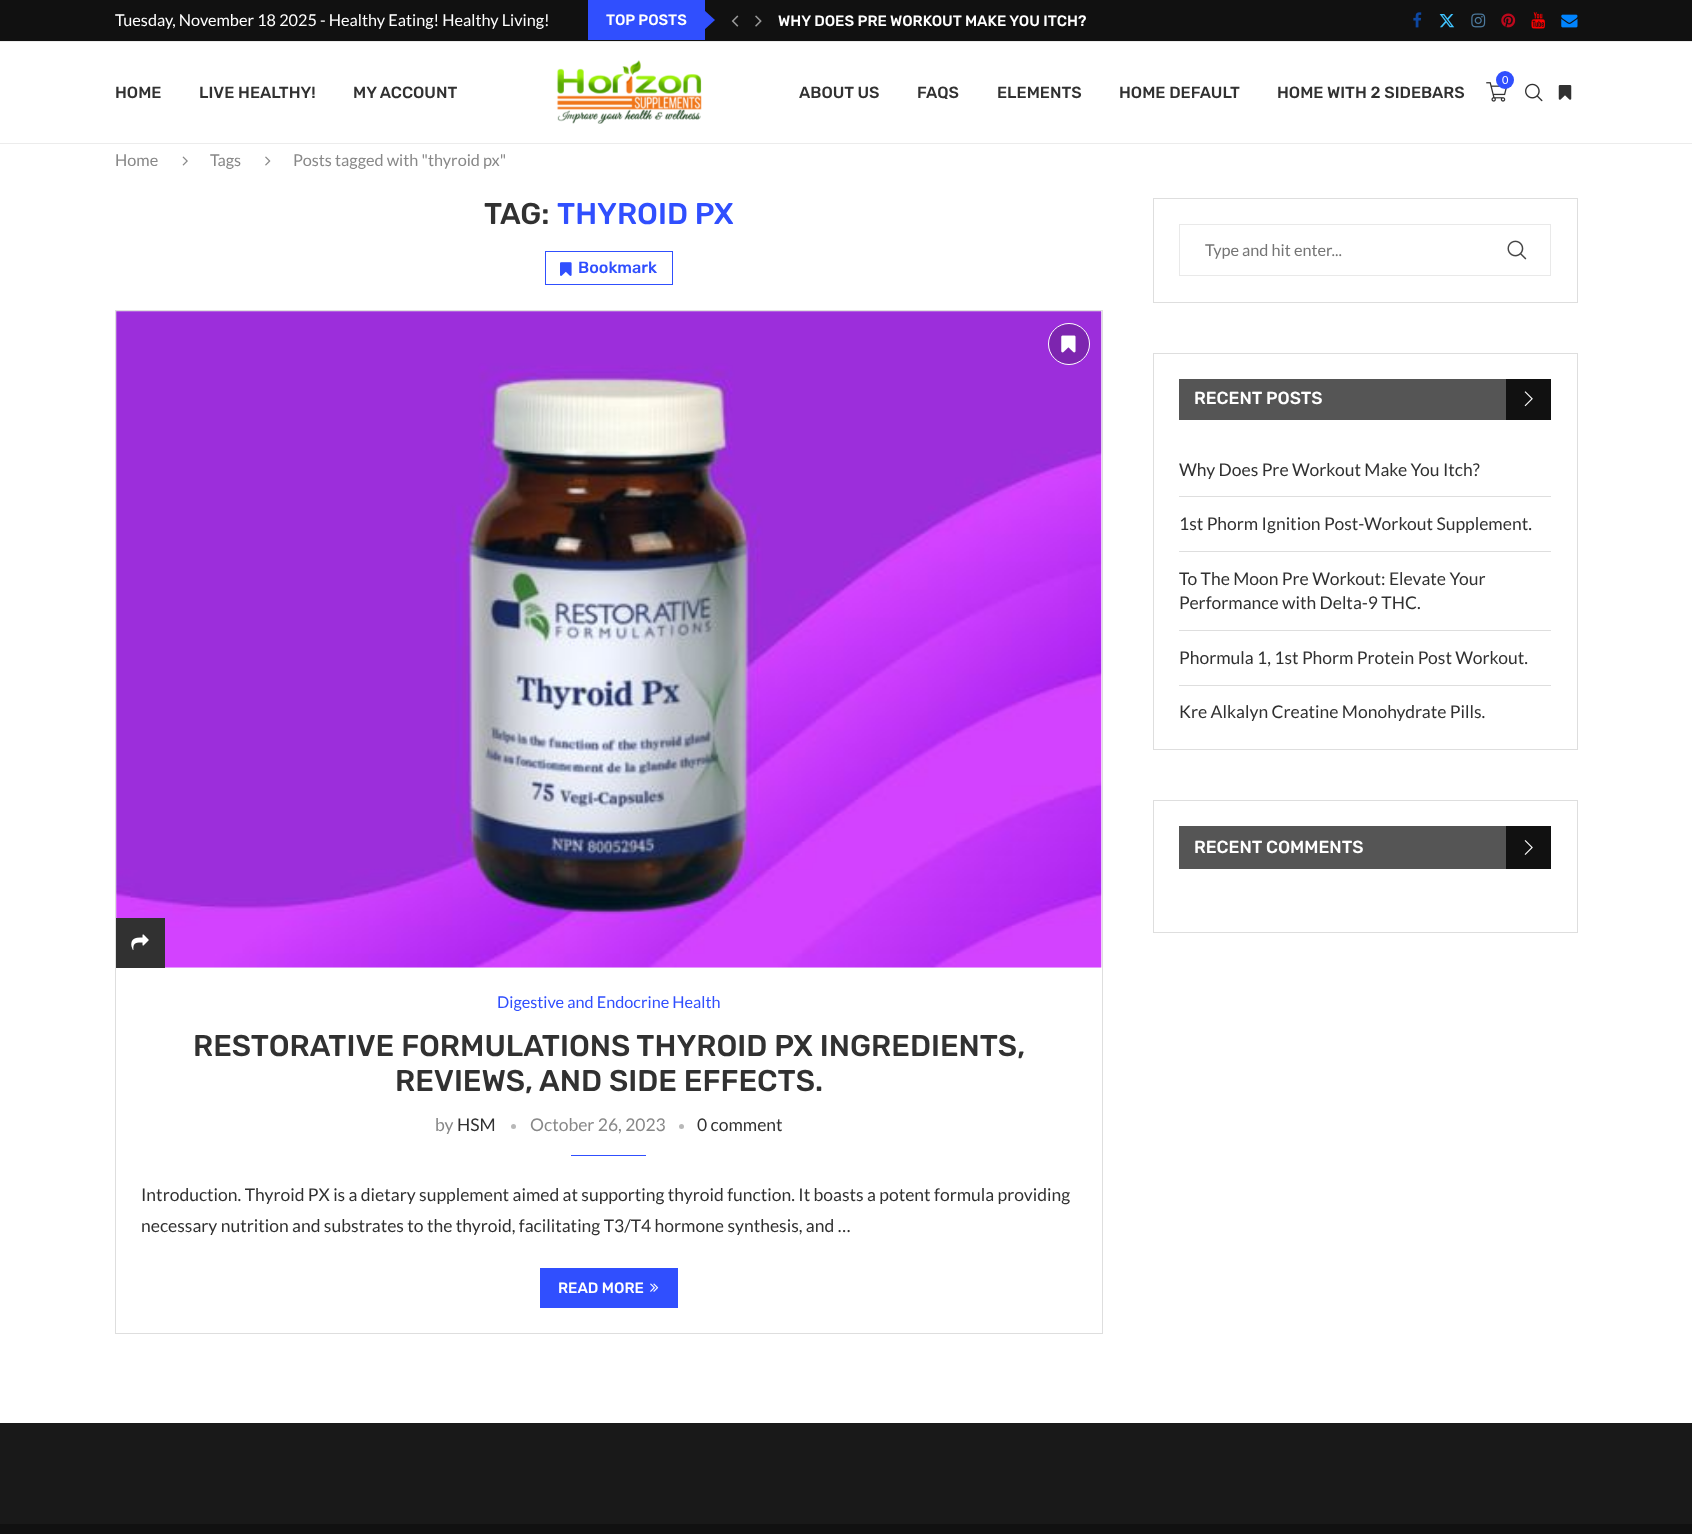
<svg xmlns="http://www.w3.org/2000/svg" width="1692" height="1534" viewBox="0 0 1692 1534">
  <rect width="100%" height="100%" fill="#ffffff"/>
  <rect x="0" y="0" width="1692" height="41" fill="#111111"/>
  <text x="115" y="26" font-family="Lato" font-size="16.25" fill="#ffffff">Tuesday, November 18 2025 - Healthy Eating! Healthy Living!</text>
  <rect x="588" y="0" width="117" height="40" fill="#304ffe"/>
  <text x="606" y="25" font-family="Rubik" font-size="15" font-weight="500" fill="#ffffff">TOP POSTS</text>
  <path d="M704 30V10L715 20Z" fill="#304ffe"/>
  <image x="731" y="15" width="8" height="12" href="img1.png"/>
  <image x="755" y="15" width="7" height="12" href="img2.png"/>
  <text x="778" y="26" font-family="Rubik" font-size="15" font-weight="500" fill="#ffffff">WHY DOES PRE WORKOUT MAKE YOU ITCH?</text>
  <image x="1413" y="12" width="9" height="16" href="img3.png"/>
  <image x="1439" y="14" width="16" height="14" href="img4.png"/>
  <image x="1471" y="13" width="15" height="15" href="img5.png"/>
  <image x="1501" y="13" width="15" height="15" href="img6.png"/>
  <image x="1531" y="12" width="14" height="17" href="img7.png"/>
  <image x="1561" y="14" width="17" height="14" href="img8.png"/>
  <rect x="0" y="41" width="1692" height="1" fill="#ececec"/>
  <rect x="0" y="143" width="1692" height="1" fill="#ececec"/>
  <image x="1486" y="82" width="21" height="20" href="img9.png"/>
  <circle cx="1505" cy="80" r="9" fill="#304ffe"/>
  <text x="1502" y="84" font-family="Lato" font-size="11" fill="#ffffff">0</text>
  <image x="1525" y="83" width="18" height="19" href="img10.png"/>
  <image x="1558" y="85" width="14" height="15" href="img11.png"/>
  <text x="115" y="98" font-family="Rubik" font-size="16.25" font-weight="500" fill="#313131">HOME</text>
  <text x="199" y="98" font-family="Rubik" font-size="16.25" font-weight="500" fill="#313131">LIVE HEALTHY!</text>
  <text x="353" y="98" font-family="Rubik" font-size="16.25" font-weight="500" fill="#313131">MY ACCOUNT</text>
  <image x="556" y="60" width="146" height="64" href="img12.png"/>
  <text x="799" y="98" font-family="Rubik" font-size="16.25" font-weight="500" fill="#313131">ABOUT US</text>
  <text x="917" y="98" font-family="Rubik" font-size="16.25" font-weight="500" fill="#313131">FAQS</text>
  <text x="997" y="98" font-family="Rubik" font-size="16.25" font-weight="500" fill="#313131">ELEMENTS</text>
  <text x="1119" y="98" font-family="Rubik" font-size="16.25" font-weight="500" fill="#313131">HOME DEFAULT</text>
  <text x="1277" y="98" font-family="Rubik" font-size="16.25" font-weight="500" fill="#313131">HOME WITH 2 SIDEBARS</text>
  <text x="115" y="166" font-family="Lato" font-size="16.25" fill="#888888">Home</text>
  <image x="182" y="156" width="6" height="10" href="img13.png"/>
  <text x="210" y="166" font-family="Lato" font-size="16.25" fill="#888888">Tags</text>
  <image x="265" y="156" width="6" height="10" href="img14.png"/>
  <text x="293" y="166" font-family="Lato" font-size="16.25" fill="#888888">Posts tagged with "thyroid px"</text>
  <text x="484" y="224" font-family="Rubik" font-size="30" font-weight="500" fill="#313131">TAG:</text>
  <text x="557" y="224" font-family="Rubik" font-size="30" font-weight="500" fill="#304ffe">THYROID PX</text>
  <rect x="545.5" y="251.5" width="127" height="33" fill="none" stroke="#304ffe"/>
  <image x="560" y="262" width="12" height="14" href="img15.png"/>
  <text x="578" y="273" font-family="Rubik" font-size="16.25" font-weight="500" fill="#304ffe">Bookmark</text>
  <rect x="115.5" y="310.5" width="987" height="1023" fill="none" stroke="#dedede"/>
  <rect x="116" y="311" width="985" height="657" fill="#f5f5f5"/>
  <image x="116" y="311" width="986" height="657" href="img16.png"/>
  <circle cx="1069" cy="344" r="20.5" fill="#7d25af" stroke="#ffffff"/>
  <image x="1061" y="335" width="15" height="18" href="img17.png"/>
  <rect x="116" y="918" width="49" height="50" fill="#313131"/>
  <image x="131" y="934" width="18" height="16" href="img18.png"/>
  <text x="497" y="1008" font-family="Lato" font-size="16.25" fill="#304ffe">Digestive and Endocrine Health</text>
  <text x="193" y="1056" font-family="Rubik" font-size="30" font-weight="500" fill="#313131">RESTORATIVE FORMULATIONS THYROID PX INGREDIENTS,</text>
  <text x="395" y="1091" font-family="Rubik" font-size="30" font-weight="500" fill="#313131">REVIEWS, AND SIDE EFFECTS.</text>
  <text x="435" y="1131" font-family="Lato" font-size="17.5" fill="#888888">by</text>
  <text x="457" y="1131" font-family="Lato" font-size="17.5" fill="#313131">HSM</text>
  <circle cx="513.5" cy="1126.5" r="2.5" fill="#b8b8b8"/>
  <text x="530" y="1131" font-family="Lato" font-size="17.5" fill="#888888">October 26, 2023</text>
  <circle cx="681.5" cy="1126.5" r="2.5" fill="#b8b8b8"/>
  <text x="697" y="1131" font-family="Lato" font-size="17.5" fill="#313131">0 comment</text>
  <rect x="571" y="1155" width="75" height="1" fill="#304ffe"/>
  <text x="141" y="1201" font-family="Lato" font-size="17.5" fill="#313131">Introduction. Thyroid PX is a dietary supplement aimed at supporting thyroid function. It boasts a potent formula providing</text>
  <text x="141" y="1232" font-family="Lato" font-size="17.5" fill="#313131">necessary nutrition and substrates to the thyroid, facilitating T3/T4 hormone synthesis, and …</text>
  <rect x="540" y="1268" width="138" height="40" fill="#304ffe"/>
  <text x="558" y="1293" font-family="Rubik" font-size="15" font-weight="500" fill="#ffffff">READ MORE</text>
  <image x="650" y="1283" width="9" height="9" href="img19.png"/>
  <rect x="1153.5" y="198.5" width="424" height="104" fill="none" stroke="#dedede"/>
  <rect x="1179.5" y="224.5" width="371" height="51" fill="none" stroke="#e9e9e9"/>
  <text x="1205" y="256" font-family="Lato" font-size="16.25" fill="#757575">Type and hit enter...</text>
  <image x="1507" y="240" width="20" height="20" href="img20.png"/>
  <rect x="1153.5" y="353.5" width="424" height="396" fill="none" stroke="#dedede"/>
  <rect x="1179" y="379" width="327" height="41" fill="#555555"/>
  <text x="1194" y="404" font-family="Rubik" font-size="17.5" font-weight="500" fill="#ffffff">RECENT POSTS</text>
  <rect x="1506" y="379" width="45" height="41" fill="#111111"/>
  <image x="1524" y="391" width="9" height="16" href="img21.png"/>
  <rect x="1179" y="496" width="372" height="1" fill="#dedede"/>
  <text x="1179" y="476" font-family="Lato" font-size="17.5" fill="#313131">Why Does Pre Workout Make You Itch?</text>
  <rect x="1179" y="551" width="372" height="1" fill="#dedede"/>
  <text x="1179" y="530" font-family="Lato" font-size="17.5" fill="#313131">1st Phorm Ignition Post-Workout Supplement.</text>
  <rect x="1179" y="630" width="372" height="1" fill="#dedede"/>
  <text x="1179" y="585" font-family="Lato" font-size="17.5" fill="#313131">To The Moon Pre Workout: Elevate Your</text>
  <text x="1179" y="609" font-family="Lato" font-size="17.5" fill="#313131">Performance with Delta-9 THC.</text>
  <rect x="1179" y="685" width="372" height="1" fill="#dedede"/>
  <text x="1179" y="664" font-family="Lato" font-size="17.5" fill="#313131">Phormula 1, 1st Phorm Protein Post Workout.</text>
  <text x="1179" y="718" font-family="Lato" font-size="17.5" fill="#313131">Kre Alkalyn Creatine Monohydrate Pills.</text>
  <rect x="1153.5" y="800.5" width="424" height="132" fill="none" stroke="#dedede"/>
  <rect x="1179" y="826" width="327" height="43" fill="#555555"/>
  <text x="1194" y="853" font-family="Rubik" font-size="17.5" font-weight="500" fill="#ffffff">RECENT COMMENTS</text>
  <rect x="1506" y="826" width="45" height="43" fill="#111111"/>
  <image x="1524" y="840" width="9" height="15" href="img22.png"/>
  <rect x="0" y="1423" width="1692" height="101" fill="#191919"/>
  <rect x="0" y="1524" width="1692" height="10" fill="#111111"/>
</svg>
